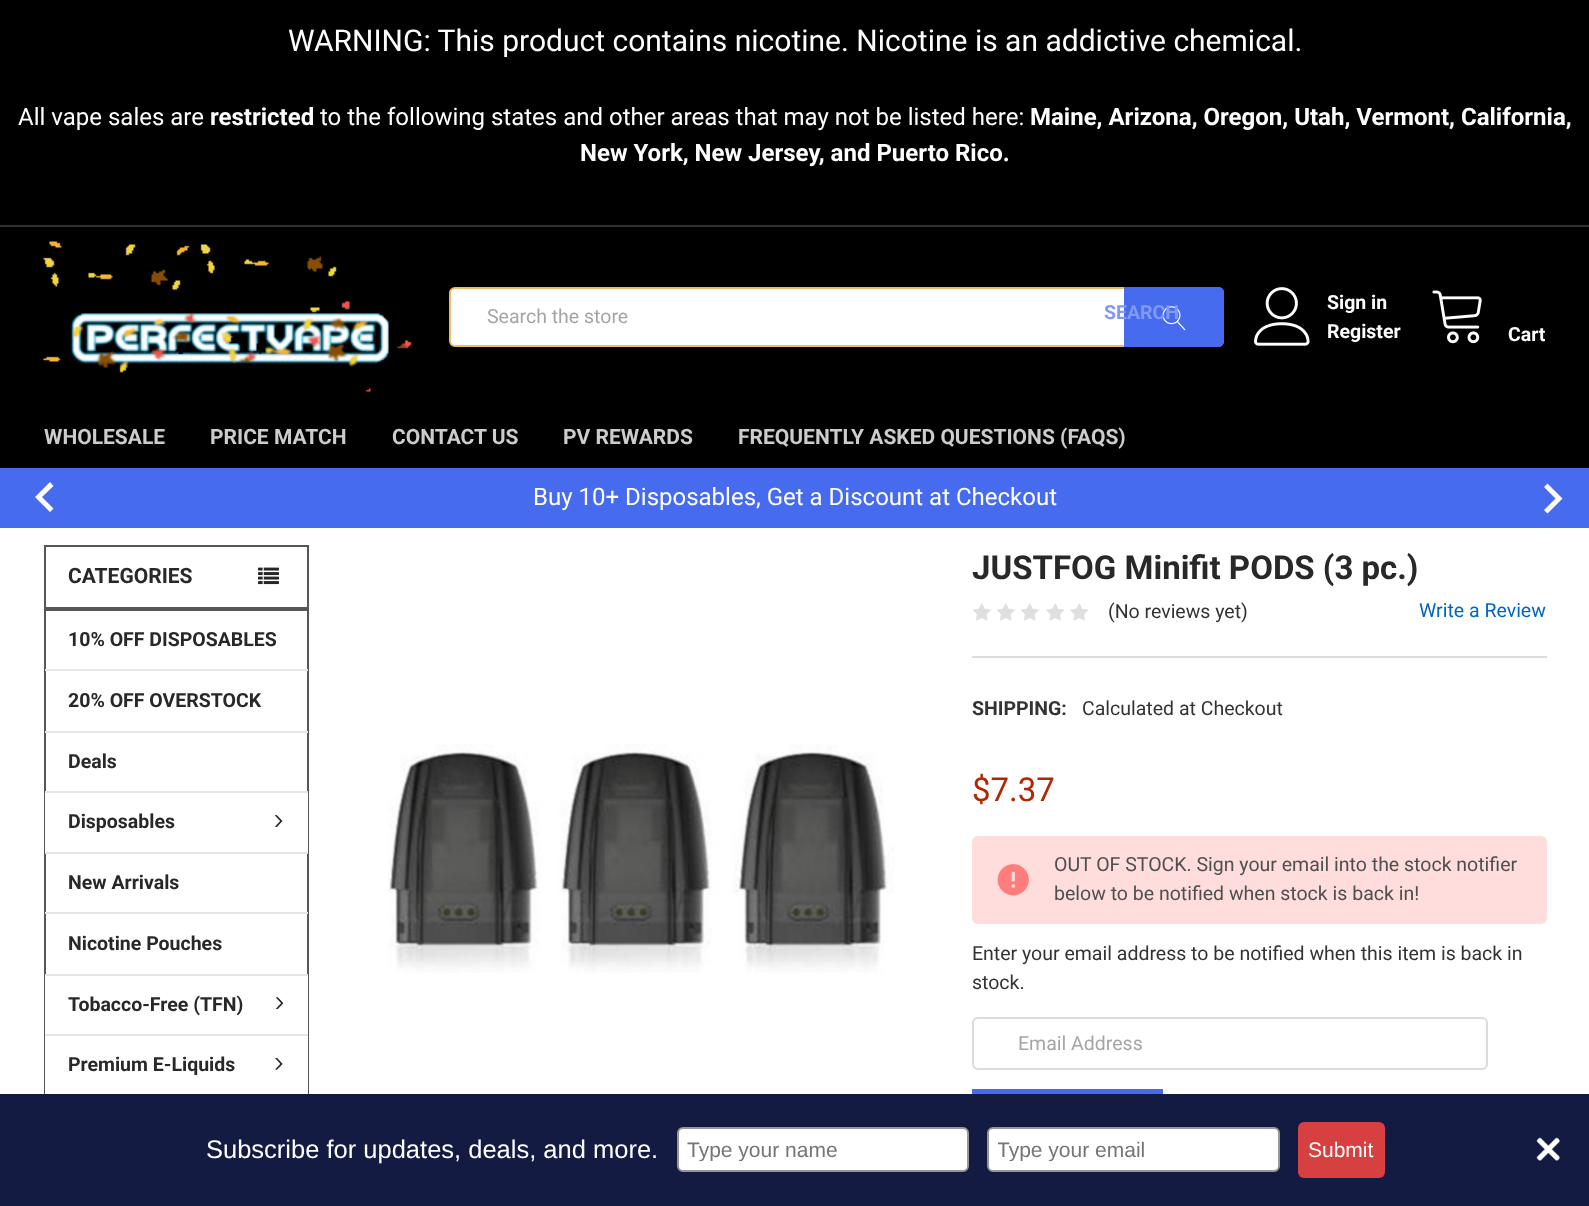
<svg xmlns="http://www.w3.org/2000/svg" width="1589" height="1206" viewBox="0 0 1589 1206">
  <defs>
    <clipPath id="clip1"><rect x="687" y="1137" width="272" height="24"/></clipPath>
    <clipPath id="clip2"><rect x="998" y="1137" width="271" height="24"/></clipPath>
  </defs>
  <rect width="100%" height="100%" fill="#ffffff"/>
  <rect x="0" y="0" width="1589" height="225" fill="#000000"/>
  <rect x="0" y="225" width="1589" height="2" fill="#303030"/>
  <text x="288" y="51" font-family="Roboto" font-size="30" fill="#ffffff">WARNING: This product contains nicotine. Nicotine is an addictive chemical.</text>
  <text x="18" y="125" font-family="Roboto" font-size="24" fill="#ffffff">All vape sales are</text>
  <text x="210" y="125" font-family="Roboto" font-size="24" font-weight="bold" fill="#ffffff">restricted</text>
  <text x="320" y="125" font-family="Roboto" font-size="24" fill="#ffffff">to the following states and other areas that may not be listed here:</text>
  <text x="1030" y="125" font-family="Roboto" font-size="24" font-weight="bold" fill="#ffffff">Maine, Arizona, Oregon, Utah, Vermont, California,</text>
  <text x="580" y="161" font-family="Roboto" font-size="24" font-weight="bold" fill="#ffffff">New York, New Jersey, and Puerto Rico.</text>
  <rect x="0" y="227" width="1589" height="241" fill="#000000"/>
  <image x="43" y="241" width="369" height="151" href="img1.png"/>
  <rect x="450" y="288" width="773" height="58" rx="5" fill="#ffffff" stroke="#edbb6e" stroke-width="2"/>
  <path d="M1124 287H1218C1221.5 287 1224 289.5 1224 293V341C1224 344.5 1221.5 347 1218 347H1124Z" fill="#476bef"/>
  <image x="1162" y="306" width="24" height="25" href="img2.png"/>
  <text x="487" y="323" font-family="Roboto" font-size="19.5" fill="#a5a5a5">Search the store</text>
  <text x="1104" y="319" font-family="Roboto" font-size="19.5" font-weight="bold" fill="#829af4">SEARCH</text>
  <image x="1254" y="287" width="56" height="59" href="img3.png"/>
  <text x="1327" y="309" font-family="Roboto" font-size="19.5" font-weight="bold" fill="#ffffff">Sign in</text>
  <text x="1327" y="338" font-family="Roboto" font-size="19.5" font-weight="bold" fill="#ffffff">Register</text>
  <image x="1432" y="290" width="50" height="54" href="img4.png"/>
  <text x="1508" y="341" font-family="Roboto" font-size="19.5" font-weight="bold" fill="#ffffff">Cart</text>
  <text x="44" y="444" font-family="Roboto" font-size="21" font-weight="bold" fill="#cccccc">WHOLESALE</text>
  <text x="210" y="444" font-family="Roboto" font-size="21" font-weight="bold" fill="#cccccc">PRICE MATCH</text>
  <text x="392" y="444" font-family="Roboto" font-size="21" font-weight="bold" fill="#cccccc">CONTACT US</text>
  <text x="563" y="444" font-family="Roboto" font-size="21" font-weight="bold" fill="#cccccc">PV REWARDS</text>
  <text x="738" y="444" font-family="Roboto" font-size="21" font-weight="bold" fill="#cccccc">FREQUENTLY ASKED QUESTIONS (FAQS)</text>
  <rect x="0" y="468" width="1589" height="60" fill="#476bef"/>
  <path d="M53.5 486L50 482L35 497L50 512L53.5 508.5L42 497Z" fill="#ffffff"/>
  <text x="533" y="505" font-family="Roboto" font-size="24" fill="#ffffff">Buy 10+ Disposables, Get a Discount at Checkout</text>
  <path d="M1544 510L1547.5 513.5L1562.5 498.5L1547.5 483.5L1544 487L1555.5 498.5Z" fill="#ffffff"/>
  <rect x="45" y="546" width="263" height="62" fill="none" stroke="#565656" stroke-width="2"/>
  <text x="68" y="583" font-family="Roboto" font-size="21" font-weight="bold" fill="#282828">CATEGORIES</text>
  <image x="258" y="567" width="21" height="18" href="img5.png"/>
  <rect x="45" y="610" width="263" height="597" fill="none" stroke="#565656" stroke-width="2"/>
  <text x="68" y="646" font-family="Roboto" font-size="19.5" font-weight="bold" fill="#282828">10% OFF DISPOSABLES</text>
  <rect x="45" y="669" width="263" height="2" fill="#e6e6e6"/>
  <text x="68" y="707" font-family="Roboto" font-size="19.5" font-weight="bold" fill="#282828">20% OFF OVERSTOCK</text>
  <rect x="45" y="731" width="263" height="2" fill="#e6e6e6"/>
  <text x="68" y="768" font-family="Roboto" font-size="19.5" font-weight="bold" fill="#282828">Deals</text>
  <rect x="45" y="793" width="263" height="59" fill="#ffffff"/>
  <rect x="45" y="791" width="263" height="2" fill="#e6e6e6"/>
  <text x="68" y="828" font-family="Roboto" font-size="19.5" font-weight="bold" fill="#282828">Disposables</text>
  <image x="275" y="815" width="8" height="12" href="img6.png"/>
  <rect x="45" y="852" width="263" height="2" fill="#e6e6e6"/>
  <text x="68" y="889" font-family="Roboto" font-size="19.5" font-weight="bold" fill="#282828">New Arrivals</text>
  <rect x="45" y="912" width="263" height="2" fill="#e6e6e6"/>
  <text x="68" y="950" font-family="Roboto" font-size="19.5" font-weight="bold" fill="#282828">Nicotine Pouches</text>
  <rect x="45" y="976" width="263" height="58" fill="#ffffff"/>
  <rect x="45" y="974" width="263" height="2" fill="#e6e6e6"/>
  <text x="68" y="1011" font-family="Roboto" font-size="19.5" font-weight="bold" fill="#282828">Tobacco-Free (TFN)</text>
  <image x="276" y="997" width="8" height="12" href="img7.png"/>
  <rect x="45" y="1036" width="263" height="58" fill="#ffffff"/>
  <rect x="45" y="1034" width="263" height="2" fill="#e6e6e6"/>
  <text x="68" y="1071" font-family="Roboto" font-size="19.5" font-weight="bold" fill="#282828">Premium E-Liquids</text>
  <image x="275" y="1058" width="8" height="12" href="img8.png"/>
  <text x="972" y="579" font-family="Roboto" font-size="33" font-weight="bold" fill="#282828">JUSTFOG Minifit PODS (3 pc.)</text>
  <image x="973" y="603" width="18" height="18" href="img9.png"/>
  <image x="997" y="603" width="18" height="18" href="img9.png"/>
  <image x="1021" y="603" width="18" height="18" href="img9.png"/>
  <image x="1046" y="603" width="18" height="18" href="img10.png"/>
  <image x="1070" y="603" width="18" height="18" href="img10.png"/>
  <text x="1108" y="618" font-family="Roboto" font-size="19.5" fill="#333333">(No reviews yet)</text>
  <text x="1419" y="617" font-family="Roboto" font-size="19.5" fill="#0066c0">Write a Review</text>
  <rect x="972" y="656" width="575" height="2" fill="#dcdcdc"/>
  <text x="972" y="715" font-family="Roboto" font-size="19.5" font-weight="bold" fill="#333333">SHIPPING:</text>
  <text x="1082" y="715" font-family="Roboto" font-size="19.5" fill="#333333">Calculated at Checkout</text>
  <image x="388" y="744" width="507" height="229" href="img11.png"/>
  <text x="972" y="801" font-family="Roboto" font-size="33" fill="#b12704">$7.37</text>
  <rect x="972" y="836" width="575" height="88" rx="6" fill="#ffdddd"/>
  <image x="997" y="864" width="32" height="32" href="img12.png"/>
  <text x="1054" y="871" font-family="Roboto" font-size="19.5" fill="#4f4f4f">OUT OF STOCK. Sign your email into the stock notifier</text>
  <text x="1054" y="900" font-family="Roboto" font-size="19.5" fill="#4f4f4f">below to be notified when stock is back in!</text>
  <text x="972" y="960" font-family="Roboto" font-size="19.5" fill="#333333">Enter your email address to be notified when this item is back in</text>
  <text x="972" y="989" font-family="Roboto" font-size="19.5" fill="#333333">stock.</text>
  <rect x="973" y="1018" width="514" height="51" rx="5" fill="none" stroke="#dcdcdc" stroke-width="2"/>
  <text x="1018" y="1050" font-family="Roboto" font-size="19.5" fill="#a5a5a5">Email Address</text>
  <rect x="972" y="1089" width="191" height="5" fill="#476bef"/>
  <rect x="0" y="1094" width="1589" height="112" fill="#141b42"/>
  <text x="206" y="1158" font-family="Liberation Sans" font-size="25.5" fill="#ffffff">Subscribe for updates, deals, and more.</text>
  <rect x="678" y="1128" width="290" height="43" rx="5" fill="#ffffff" stroke="#979797" stroke-width="2"/>
  <g clip-path="url(#clip1)">
    <text x="687" y="1157" font-family="Liberation Sans" font-size="21" fill="#757575">Type your name</text>
  </g>
  <rect x="988" y="1128" width="291" height="43" rx="5" fill="#ffffff" stroke="#979797" stroke-width="2"/>
  <g clip-path="url(#clip2)">
    <text x="997" y="1157" font-family="Liberation Sans" font-size="21" fill="#757575">Type your email</text>
  </g>
  <rect x="1298" y="1122" width="87" height="56" rx="6" fill="#d64040"/>
  <text x="1308" y="1157" font-family="Liberation Sans" font-size="21" fill="#ffffff">Submit</text>
  <image x="1536" y="1137" width="24" height="24" href="img13.png"/>
</svg>
